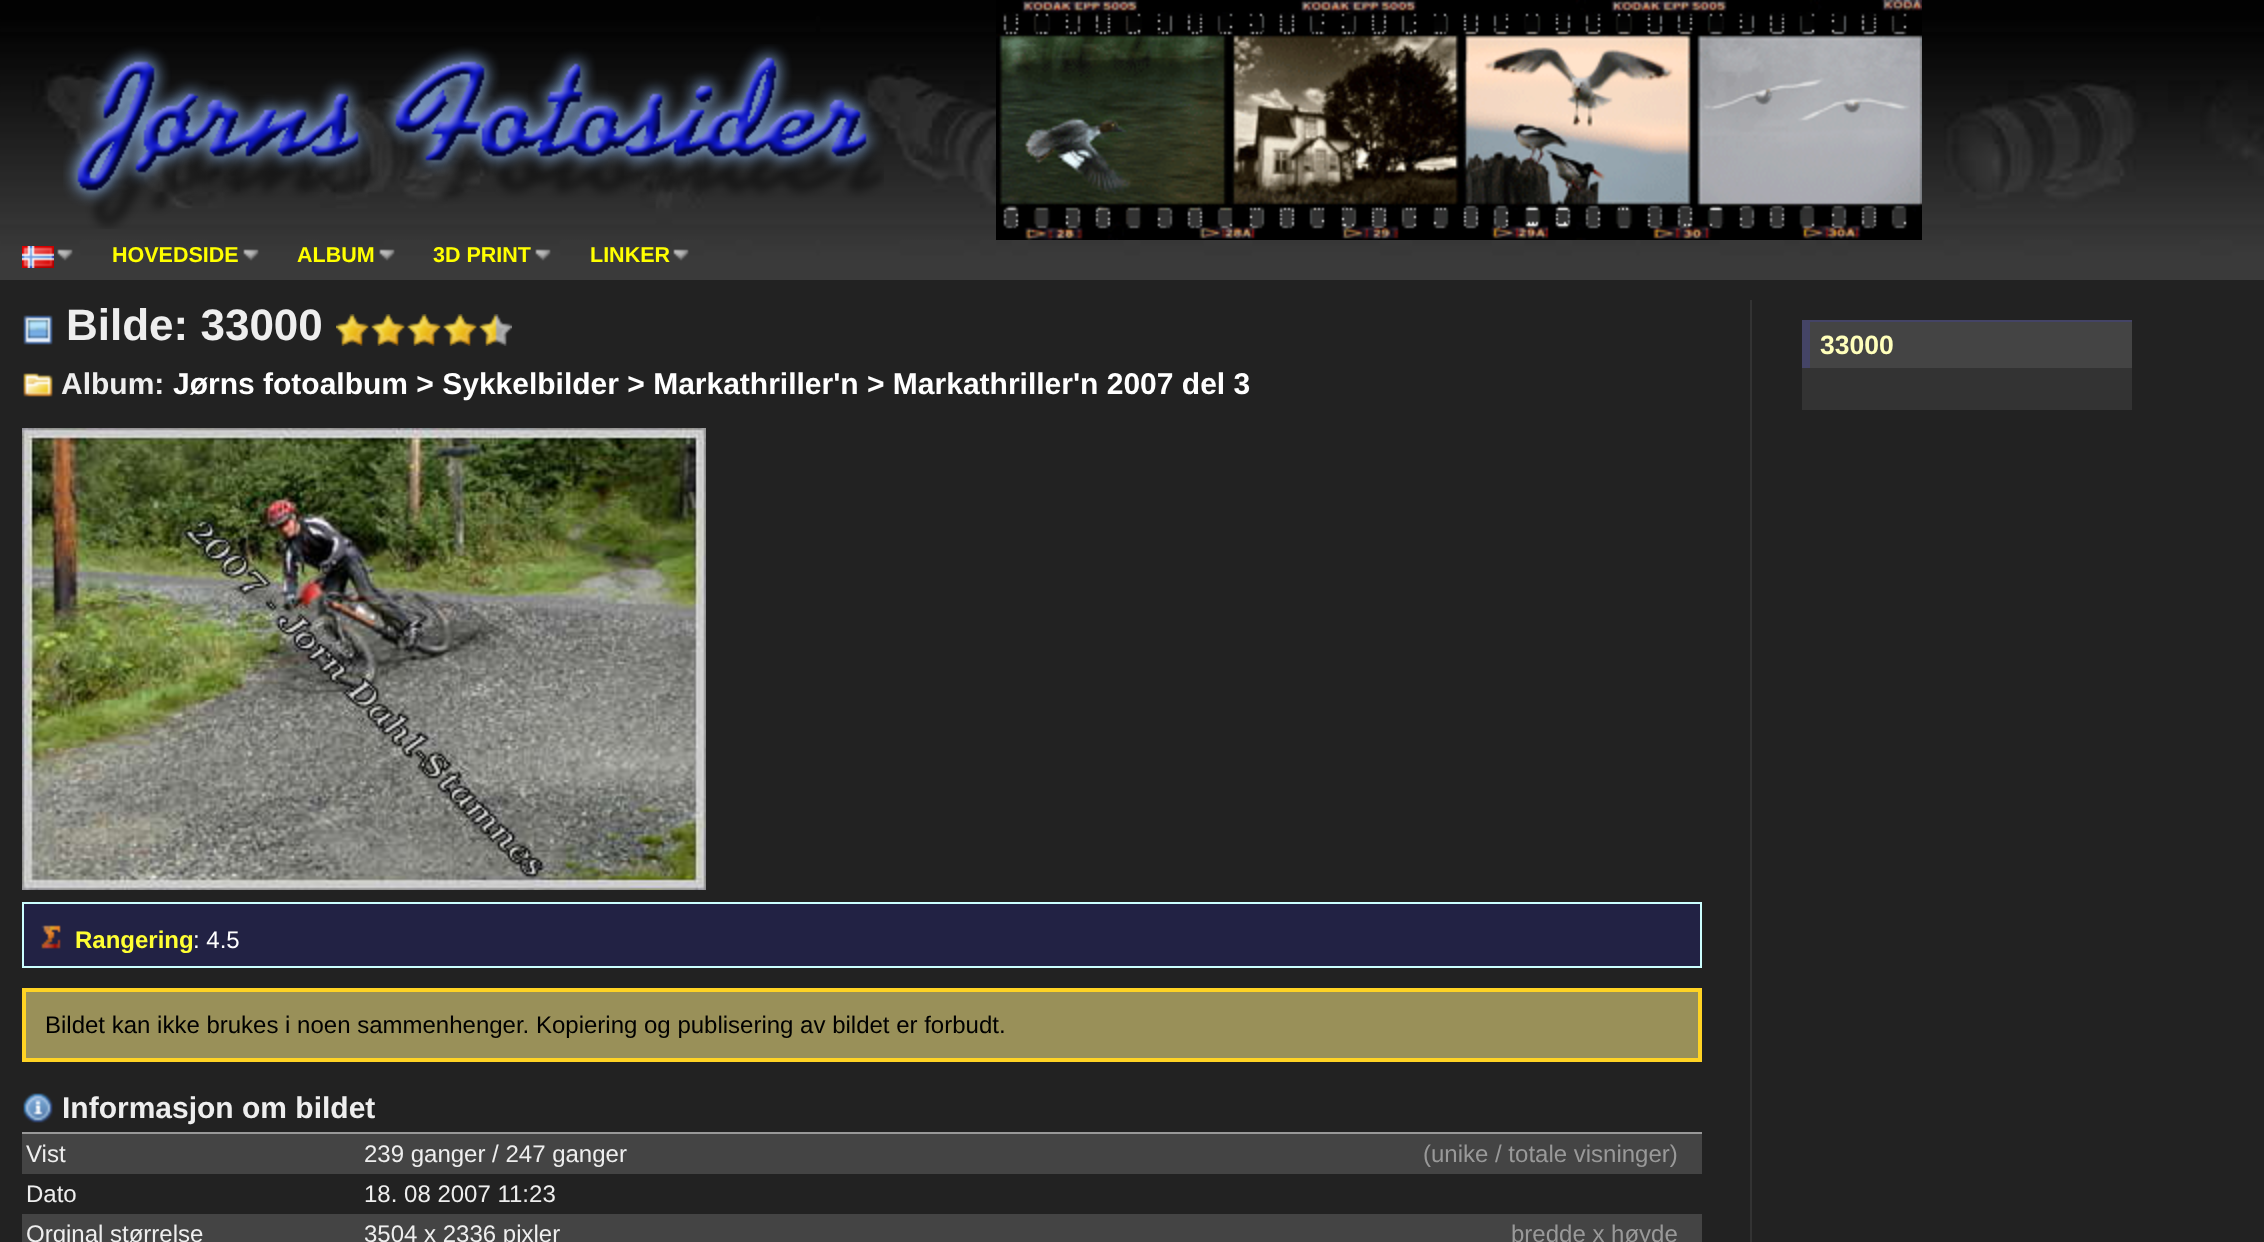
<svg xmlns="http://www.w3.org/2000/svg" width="2264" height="1242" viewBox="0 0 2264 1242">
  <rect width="100%" height="100%" fill="#222222"/>
  <image x="0" y="0" width="2264" height="280" href="img1.png"/>
  <image x="996" y="0" width="926" height="240" href="img2.png"/>
  <image x="63" y="44" width="821" height="185" href="img3.png"/>
  <image x="57" y="249" width="16" height="12" href="img4.png"/>
  <image x="22" y="246" width="32" height="22" href="img5.png"/>
  <image x="243" y="249" width="16" height="12" href="img4.png"/>
  <text x="112" y="262" font-family="Liberation Sans" font-size="21.5" font-weight="bold" fill="#ffff00">HOVEDSIDE</text>
  <image x="379" y="249" width="16" height="12" href="img6.png"/>
  <text x="297" y="262" font-family="Liberation Sans" font-size="21.5" font-weight="bold" fill="#ffff00">ALBUM</text>
  <image x="535" y="249" width="16" height="12" href="img4.png"/>
  <text x="433" y="262" font-family="Liberation Sans" font-size="21.5" font-weight="bold" fill="#ffff00">3D PRINT</text>
  <image x="673" y="249" width="16" height="12" href="img7.png"/>
  <text x="590" y="262" font-family="Liberation Sans" font-size="21.5" font-weight="bold" fill="#ffff00">LINKER</text>
  <rect x="1750" y="300" width="2" height="942" fill="#333333"/>
  <image x="23" y="315" width="30" height="30" href="img8.png"/>
  <text x="66" y="340" font-family="Liberation Sans" font-size="44" font-weight="bold" fill="#eeeeee">Bilde: 33000</text>
  <image x="336" y="314" width="176" height="32" href="img9.png"/>
  <image x="23" y="373" width="30" height="24" href="img10.png"/>
  <text x="61" y="394" font-family="Liberation Sans" font-size="30" font-weight="bold" fill="#eeeeee">Album:</text>
  <text x="173" y="394" font-family="Liberation Sans" font-size="30" font-weight="bold" fill="#ffffff">Jørns fotoalbum &gt; Sykkelbilder &gt; Markathriller'n &gt; Markathriller'n 2007 del 3</text>
  <image x="22" y="428" width="684" height="462" href="img11.png"/>
  <rect x="23" y="903" width="1678" height="64" fill="#222244" stroke="#ccffff" stroke-width="2"/>
  <image x="41" y="925" width="20" height="24" href="img12.png"/>
  <text x="75" y="948" font-family="Liberation Sans" font-size="24" font-weight="bold" fill="#ffff33">Rangering</text>
  <text x="193" y="948" font-family="Liberation Sans" font-size="24" fill="#ffffff">: 4.5</text>
  <rect x="24" y="990" width="1676" height="70" fill="#999059" stroke="#ffd324" stroke-width="4"/>
  <text x="45" y="1033" font-family="Liberation Sans" font-size="24" fill="#000000">Bildet kan ikke brukes i noen sammenhenger. Kopiering og publisering av bildet er forbudt.</text>
  <image x="23" y="1093" width="30" height="30" href="img13.png"/>
  <text x="62" y="1118" font-family="Liberation Sans" font-size="30" font-weight="bold" fill="#eeeeee">Informasjon om bildet</text>
  <rect x="22" y="1132" width="1680" height="2" fill="#999999"/>
  <rect x="22" y="1134" width="1680" height="40" fill="#444444"/>
  <text x="26" y="1162" font-family="Liberation Sans" font-size="24" fill="#eeeeee">Vist</text>
  <text x="364" y="1162" font-family="Liberation Sans" font-size="24" fill="#eeeeee">239 ganger / 247 ganger</text>
  <text x="1423" y="1162" font-family="Liberation Sans" font-size="24" fill="#999999">(unike / totale visninger)</text>
  <text x="26" y="1202" font-family="Liberation Sans" font-size="24" fill="#eeeeee">Dato</text>
  <text x="364" y="1202" font-family="Liberation Sans" font-size="24" fill="#eeeeee">18. 08 2007 11:23</text>
  <rect x="22" y="1214" width="1680" height="28" fill="#444444"/>
  <text x="26" y="1242" font-family="Liberation Sans" font-size="24" fill="#eeeeee">Orginal størrelse</text>
  <text x="364" y="1242" font-family="Liberation Sans" font-size="24" fill="#eeeeee">3504 x 2336 pixler</text>
  <text x="1511" y="1242" font-family="Liberation Sans" font-size="24" fill="#999999">bredde x høyde</text>
  <rect x="1802" y="368" width="330" height="42" fill="#333333"/>
  <rect x="1810" y="322" width="322" height="46" fill="#444444"/>
  <rect x="1802" y="320" width="330" height="2" fill="#444466"/>
  <rect x="1802" y="320" width="8" height="48" fill="#444466"/>
  <text x="1820" y="354" font-family="Liberation Sans" font-size="26.5" font-weight="bold" fill="#ffffbb">33000</text>
</svg>
